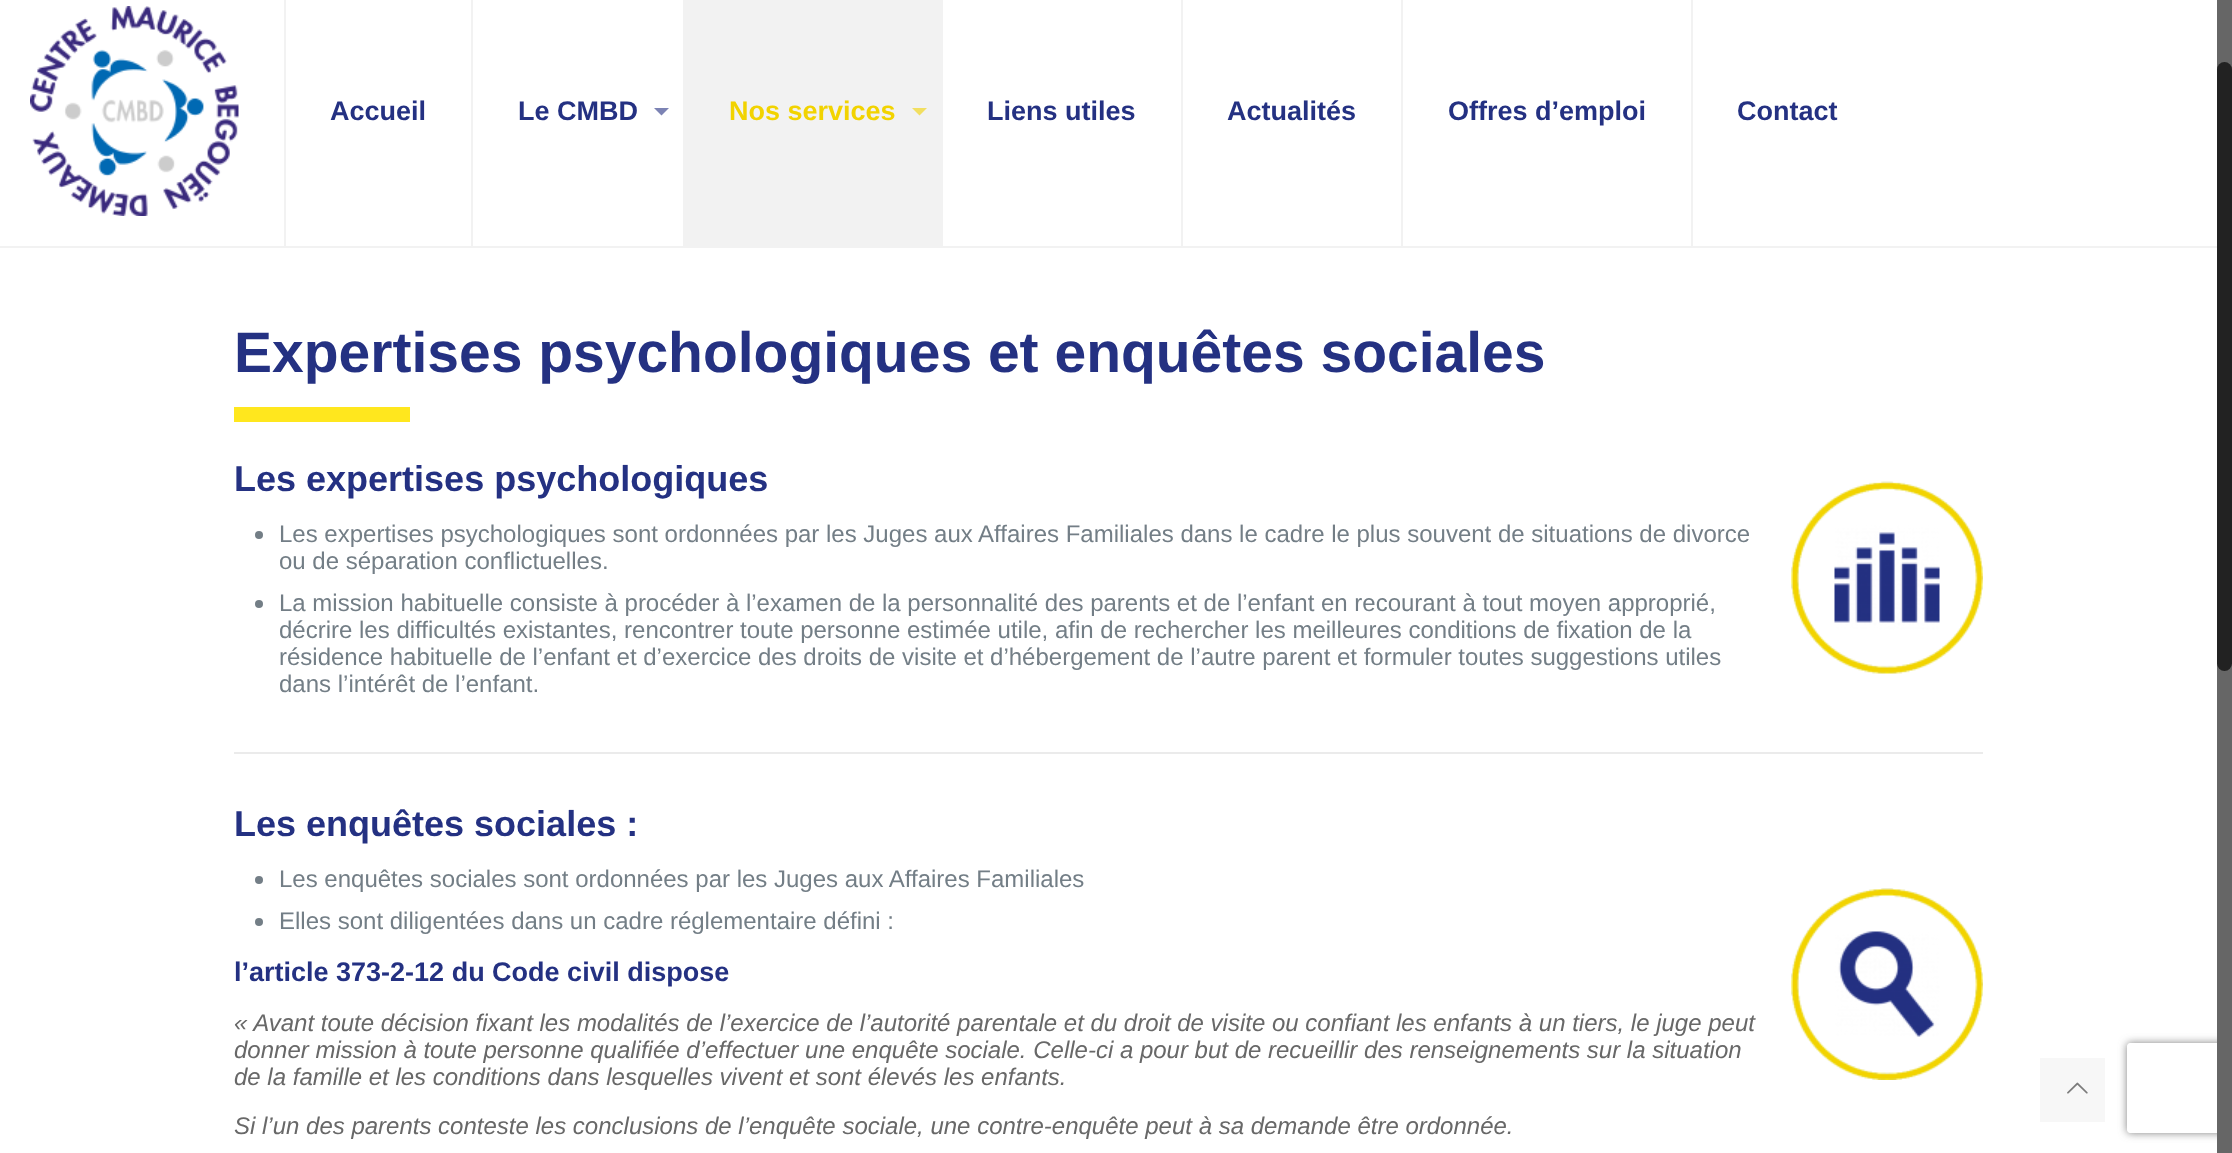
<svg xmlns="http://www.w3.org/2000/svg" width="2232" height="1153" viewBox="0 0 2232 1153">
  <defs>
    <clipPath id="clip1"><path d="M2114 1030H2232V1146H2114ZM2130 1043H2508C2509.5 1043 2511 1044.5 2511 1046V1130C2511 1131.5 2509.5 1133 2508 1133H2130C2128.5 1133 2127 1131.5 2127 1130V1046C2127 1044.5 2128.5 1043 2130 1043Z" clip-rule="evenodd"/></clipPath>
    <filter id="blur1" x="-50%" y="-200%" width="200%" height="500%"><feGaussianBlur stdDeviation="4"/></filter>
  </defs>
  <rect width="100%" height="100%" fill="#ffffff"/>
  <rect x="0" y="246" width="2217" height="2" fill="#f2f2f2"/>
  <image x="30" y="6" width="209" height="210" href="img1.png"/>
  <rect x="471" y="0" width="2" height="246" fill="#f2f2f2"/>
  <rect x="284" y="0" width="2" height="246" fill="#f2f2f2"/>
  <text x="330" y="120" font-family="Liberation Sans" font-size="27" font-weight="bold" fill="#243182">Accueil</text>
  <rect x="683" y="0" width="260" height="246" fill="#f2f2f2"/>
  <text x="518" y="120" font-family="Liberation Sans" font-size="27" font-weight="bold" fill="#243182">Le CMBD</text>
  <path d="M654 108H669L661.5 115.5Z" fill="#7c83b4"/>
  <text x="729" y="120" font-family="Liberation Sans" font-size="27" font-weight="bold" fill="#f2d300">Nos services</text>
  <path d="M912 108H927L919.5 115.5Z" fill="#f2df61"/>
  <rect x="1181" y="0" width="2" height="246" fill="#f2f2f2"/>
  <text x="987" y="120" font-family="Liberation Sans" font-size="27" font-weight="bold" fill="#243182">Liens utiles</text>
  <rect x="1401" y="0" width="2" height="246" fill="#f2f2f2"/>
  <text x="1227" y="120" font-family="Liberation Sans" font-size="27" font-weight="bold" fill="#243182">Actualités</text>
  <rect x="1691" y="0" width="2" height="246" fill="#f2f2f2"/>
  <text x="1448" y="120" font-family="Liberation Sans" font-size="27" font-weight="bold" fill="#243182">Offres d’emploi</text>
  <text x="1737" y="120" font-family="Liberation Sans" font-size="27" font-weight="bold" fill="#243182">Contact</text>
  <text x="234" y="372" font-family="Liberation Sans" font-size="57" font-weight="bold" fill="#243182">Expertises psychologiques et enquêtes sociales</text>
  <rect x="234" y="407" width="176" height="15" fill="#ffe71e"/>
  <text x="234" y="491" font-family="Liberation Sans" font-size="36" font-weight="bold" fill="#243182">Les expertises psychologiques</text>
  <image x="1791" y="481" width="192" height="193" href="img2.png"/>
  <circle cx="259" cy="535" r="4" fill="#737e86"/>
  <text x="279" y="542" font-family="Liberation Sans" font-size="24" fill="#737e86">Les expertises psychologiques sont ordonnées par les Juges aux Affaires Familiales dans le cadre le plus souvent de situations de divorce</text>
  <text x="279" y="569" font-family="Liberation Sans" font-size="24" fill="#737e86">ou de séparation conflictuelles.</text>
  <circle cx="259" cy="604" r="4" fill="#737e86"/>
  <text x="279" y="611" font-family="Liberation Sans" font-size="24" fill="#737e86">La mission habituelle consiste à procéder à l’examen de la personnalité des parents et de l’enfant en recourant à tout moyen approprié,</text>
  <text x="279" y="638" font-family="Liberation Sans" font-size="24" fill="#737e86">décrire les difficultés existantes, rencontrer toute personne estimée utile, afin de rechercher les meilleures conditions de fixation de la</text>
  <text x="279" y="665" font-family="Liberation Sans" font-size="24" fill="#737e86">résidence habituelle de l’enfant et d’exercice des droits de visite et d’hébergement de l’autre parent et formuler toutes suggestions utiles</text>
  <text x="279" y="692" font-family="Liberation Sans" font-size="24" fill="#737e86">dans l’intérêt de l’enfant.</text>
  <rect x="234" y="752" width="1749" height="2" fill="#ebebeb"/>
  <text x="234" y="836" font-family="Liberation Sans" font-size="36" font-weight="bold" fill="#243182">Les enquêtes sociales :</text>
  <circle cx="259" cy="880" r="4" fill="#737e86"/>
  <text x="279" y="887" font-family="Liberation Sans" font-size="24" fill="#737e86">Les enquêtes sociales sont ordonnées par les Juges aux Affaires Familiales</text>
  <image x="1791" y="888" width="192" height="192" href="img3.png"/>
  <circle cx="259" cy="922" r="4" fill="#737e86"/>
  <text x="279" y="929" font-family="Liberation Sans" font-size="24" fill="#737e86">Elles sont diligentées dans un cadre réglementaire défini :</text>
  <text x="234" y="981" font-family="Liberation Sans" font-size="27" font-weight="bold" fill="#243182">l’article 373-2-12 du Code civil dispose</text>
  <text x="234" y="1031" font-family="Liberation Sans" font-size="24" font-style="italic" fill="#686868">« Avant toute décision fixant les modalités de l’exercice de l’autorité parentale et du droit de visite ou confiant les enfants à un tiers, le juge peut</text>
  <text x="234" y="1058" font-family="Liberation Sans" font-size="24" font-style="italic" fill="#686868">donner mission à toute personne qualifiée d’effectuer une enquête sociale. Celle-ci a pour but de recueillir des renseignements sur la situation</text>
  <text x="234" y="1085" font-family="Liberation Sans" font-size="24" font-style="italic" fill="#686868">de la famille et les conditions dans lesquelles vivent et sont élevés les enfants.</text>
  <text x="234" y="1134" font-family="Liberation Sans" font-size="24" font-style="italic" fill="#686868">Si l’un des parents conteste les conclusions de l’enquête sociale, une contre-enquête peut à sa demande être ordonnée.</text>
  <g clip-path="url(#clip1)">
    <rect x="2127" y="1043" width="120" height="90" rx="3" fill="#808080" filter="url(#blur1)"/>
  </g>
  <rect x="2217" y="0" width="15" height="1153" fill="#666666"/>
  <rect x="2217" y="62" width="15" height="609" rx="7.5" fill="#222222"/>
  <rect x="2040" y="1058" width="65" height="64" fill="#f7f7f7"/>
  <image x="2067" y="1082" width="21" height="12" href="img4.png"/>
</svg>
